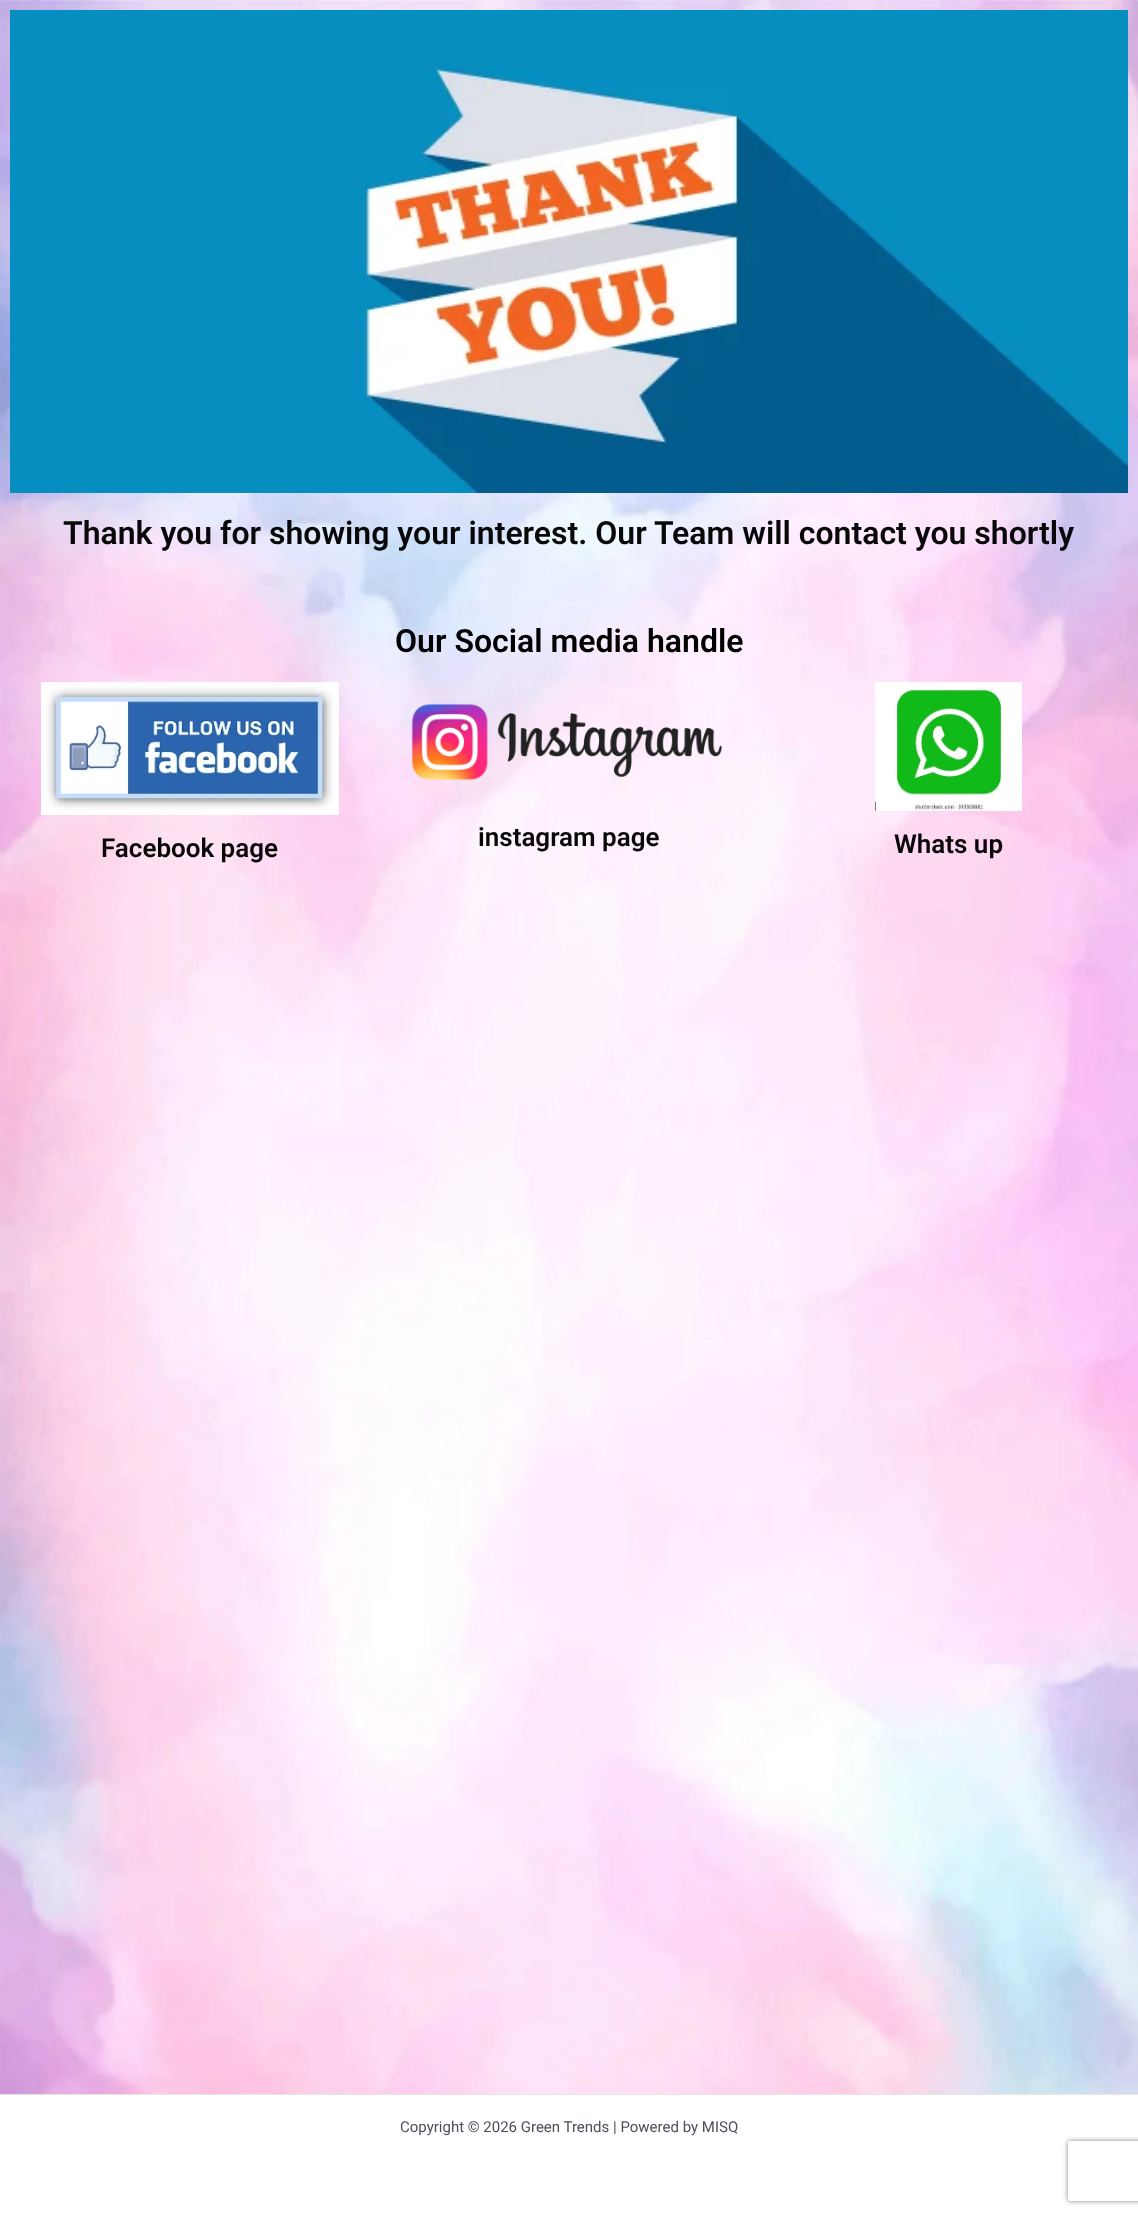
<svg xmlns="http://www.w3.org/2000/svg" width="1138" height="2215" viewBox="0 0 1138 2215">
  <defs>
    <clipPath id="clip1"><path d="M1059 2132H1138V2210H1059ZM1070 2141H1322C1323 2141 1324 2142 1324 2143V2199C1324 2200 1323 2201 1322 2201H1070C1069 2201 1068 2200 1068 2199V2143C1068 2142 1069 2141 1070 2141Z" clip-rule="evenodd"/></clipPath>
    <filter id="blur1" x="-50%" y="-200%" width="200%" height="500%"><feGaussianBlur stdDeviation="2.5"/></filter>
  </defs>
  <rect width="100%" height="100%" fill="#ffffff"/>
  <image x="0" y="0" width="1138" height="2094" href="img1.png"/>
  <image x="10" y="10" width="1118" height="483" href="img2.png"/>
  <text x="63" y="544" font-family="Roboto" font-size="32" font-weight="600" fill="#080808">Thank you for showing your interest. Our Team will contact you shortly</text>
  <text x="395" y="652" font-family="Roboto" font-size="32" font-weight="600" fill="#000000">Our Social media handle</text>
  <image x="41" y="682" width="298" height="133" href="img3.png"/>
  <text x="101" y="857" font-family="Roboto" font-size="26" font-weight="600" fill="#080808">Facebook page</text>
  <image x="411" y="703" width="311" height="78" href="img4.png"/>
  <text x="478" y="846" font-family="Roboto" font-size="26" font-weight="600" fill="#080808">instagram page</text>
  <image x="875" y="682" width="147" height="129" href="img5.png"/>
  <text x="894" y="853" font-family="Roboto" font-size="26" font-weight="600" fill="#080808">Whats up</text>
  <rect x="0" y="2094" width="1138" height="1" fill="#e5e5e5"/>
  <text x="400" y="2132" font-family="Roboto" font-size="15" fill="#4b4f58">Copyright © 2026 Green Trends | Powered by MISQ</text>
  <g clip-path="url(#clip1)">
    <rect x="1068" y="2141" width="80" height="60" rx="2" fill="#808080" filter="url(#blur1)"/>
  </g>
</svg>
